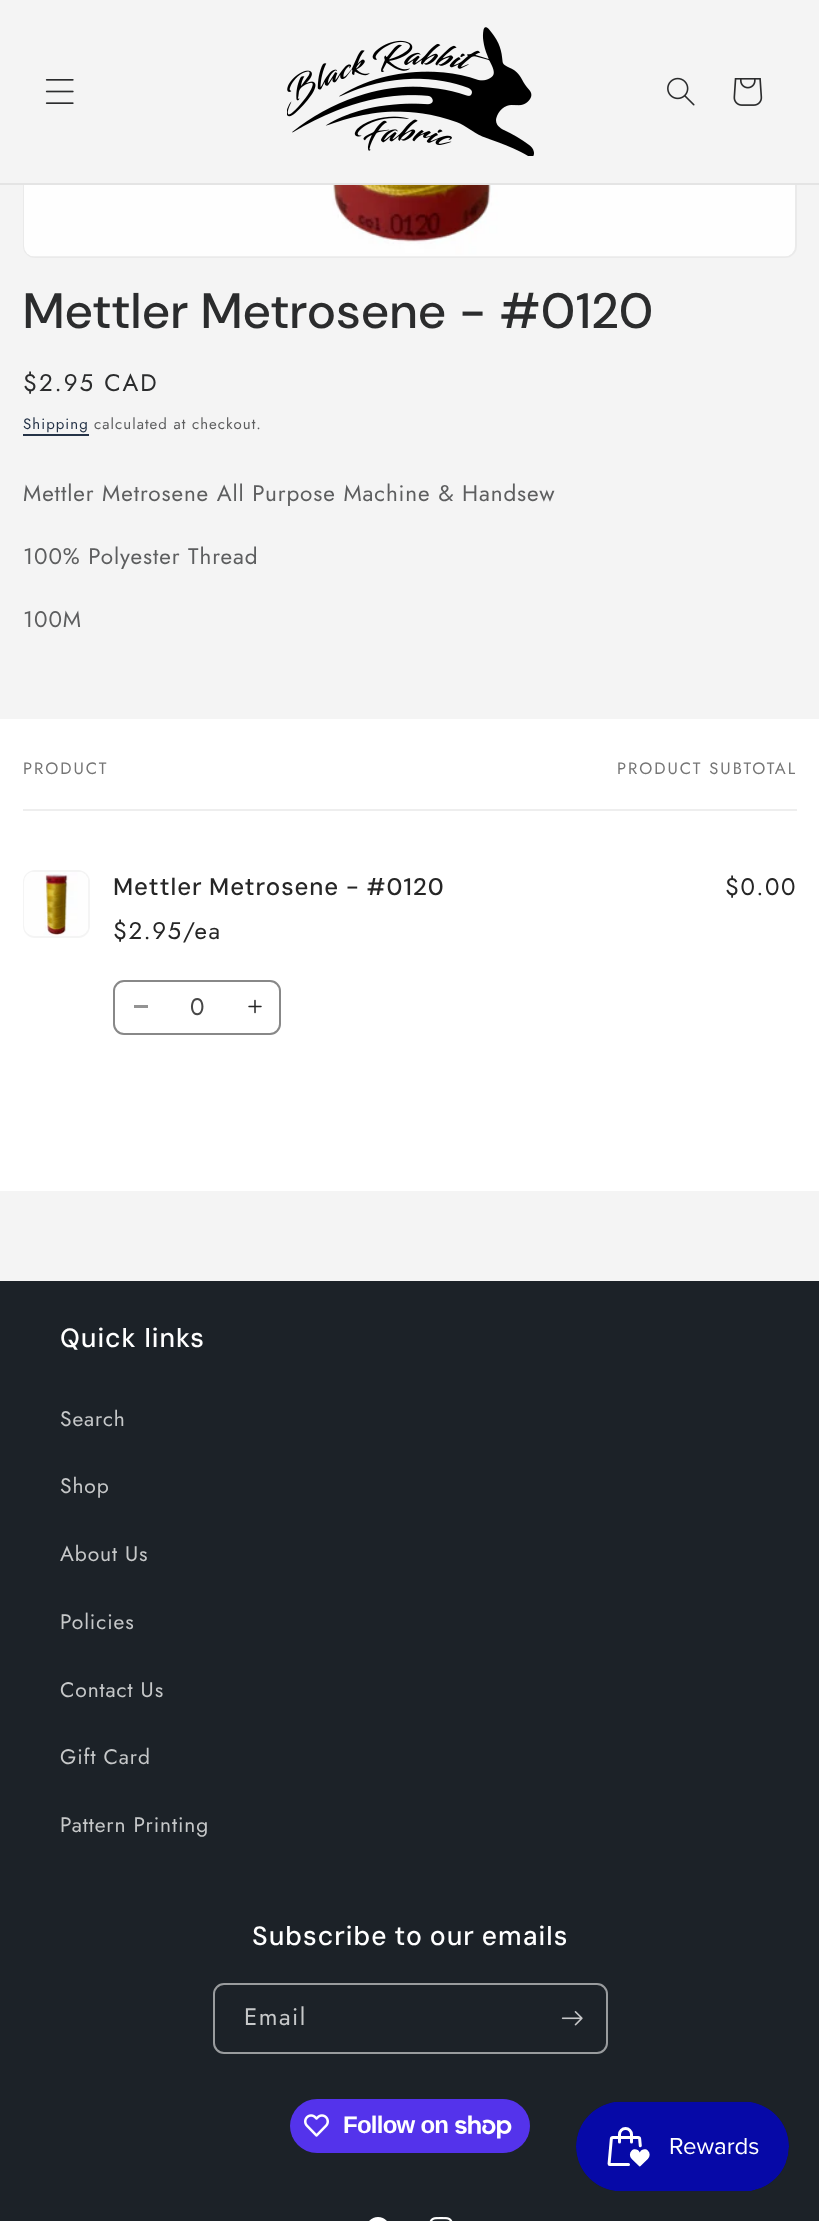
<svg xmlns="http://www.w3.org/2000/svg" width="819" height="2221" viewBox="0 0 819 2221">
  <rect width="100%" height="100%" fill="#f4f4f4"/>
  <rect x="24" y="-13" width="772" height="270" rx="11" fill="none" stroke="#eaeaea" stroke-width="2"/>
  <rect x="23" y="0" width="774" height="183" fill="#f4f4f4"/>
  <rect x="0" y="183" width="819" height="2" fill="#e4e4e4"/>
  <image x="45" y="79" width="29" height="25" href="img1.png"/>
  <image x="287" y="27" width="247" height="129" href="img2.png"/>
  <image x="667" y="77" width="28" height="29" href="img3.png"/>
  <image x="733" y="78" width="30" height="28" href="img4.png"/>
  <image x="24" y="185" width="771" height="72" href="img5.png"/>
  <text x="23" y="328" font-family="DM Sans" font-size="49.5" font-weight="500" letter-spacing="1" fill="#2b2c2d">Mettler Metrosene - #0120</text>
  <text x="23" y="391" font-family="Jost" font-size="24" letter-spacing="2" fill="#2b2c2d">$2.95 CAD</text>
  <text x="23" y="429" font-family="Jost" font-size="15" letter-spacing="1.05" fill="#253347">Shipping</text>
  <rect x="23" y="434" width="66" height="2" fill="#253347"/>
  <text x="94" y="429" font-family="Jost" font-size="15" letter-spacing="1.05" fill="#5d5e5f">calculated at checkout.</text>
  <text x="23" y="501" font-family="Jost" font-size="22.5" letter-spacing="0.9" fill="#5d5e5f">Mettler Metrosene All Purpose Machine &amp; Handsew</text>
  <text x="23" y="564" font-family="Jost" font-size="22.5" letter-spacing="0.9" fill="#5d5e5f">100% Polyester Thread</text>
  <text x="23" y="627" font-family="Jost" font-size="22.5" letter-spacing="0.9" fill="#5d5e5f">100M</text>
  <rect x="0" y="719" width="819" height="472" fill="#ffffff"/>
  <rect x="23" y="809" width="774" height="2" fill="#eeeeee"/>
  <text x="23" y="774" font-family="Jost" font-size="16.5" letter-spacing="2" fill="#757575">PRODUCT</text>
  <text x="617" y="774" font-family="Jost" font-size="16.5" letter-spacing="2" fill="#757575">PRODUCT SUBTOTAL</text>
  <rect x="24" y="871" width="65" height="66" rx="11" fill="none" stroke="#f4f4f4" stroke-width="2"/>
  <image x="24" y="872" width="64" height="64" href="img6.png"/>
  <text x="113" y="895" word-spacing="-0.5" font-family="'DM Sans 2'" font-size="24" font-weight="500" letter-spacing="0.9" fill="#262626">Mettler Metrosene - #0120</text>
  <text x="113" y="939" font-family="Jost" font-size="24" letter-spacing="1.5" fill="#262626">$2.95/ea</text>
  <text x="725" y="895" font-family="Jost" font-size="24" letter-spacing="1.5" fill="#262626">$0.00</text>
  <rect x="134" y="1005" width="14" height="3" fill="#939393"/>
  <image x="248" y="999" width="14" height="15" href="img7.png"/>
  <rect x="114" y="981" width="166" height="53" rx="10" fill="none" stroke="#888888" stroke-width="2"/>
  <text x="190" y="1015" font-family="Jost" font-size="24" fill="#474747">0</text>
  <rect x="0" y="1281" width="819" height="940" fill="#1c2228"/>
  <text x="60" y="1347" font-family="'DM Sans 2'" font-size="26.4" font-weight="500" letter-spacing="1" fill="#ffffff">Quick links</text>
  <text x="60" y="1426" font-family="Jost" font-size="21" letter-spacing="0.9" fill="#c6c8c9">Search</text>
  <text x="60" y="1493" font-family="Jost" font-size="21" letter-spacing="0.9" fill="#c6c8c9">Shop</text>
  <text x="60" y="1561" font-family="Jost" font-size="21" letter-spacing="0.9" fill="#c6c8c9">About Us</text>
  <text x="60" y="1629" font-family="Jost" font-size="21" letter-spacing="0.9" fill="#c6c8c9">Policies</text>
  <text x="60" y="1697" font-family="Jost" font-size="21" letter-spacing="0.9" fill="#c6c8c9">Contact Us</text>
  <text x="60" y="1764" font-family="Jost" font-size="21" letter-spacing="0.9" fill="#c6c8c9">Gift Card</text>
  <text x="60" y="1832" font-family="Jost" font-size="21" letter-spacing="0.9" fill="#c6c8c9">Pattern Printing</text>
  <text x="252" y="1945" word-spacing="-1" font-family="'DM Sans 2'" font-size="26.4" font-weight="500" letter-spacing="1" fill="#ffffff">Subscribe to our emails</text>
  <rect x="214" y="1984" width="393" height="69" rx="10" fill="none" stroke="#999c9e" stroke-width="2"/>
  <text x="244" y="2025" font-family="Jost" font-size="24" letter-spacing="1.5" fill="#c6c8c9">Email</text>
  <image x="561" y="2011" width="22" height="15" href="img8.png"/>
  <rect x="290" y="2099" width="240" height="54" rx="27" fill="#5433eb"/>
  <image x="304" y="2114" width="25" height="23" href="img9.png"/>
  <text x="343" y="2133" font-family="Liberation Sans" font-size="24" font-weight="bold" letter-spacing="-0.75" fill="#ffffff">Follow on</text>
  <image x="455" y="2115" width="57" height="24" href="img10.png"/>
  <image x="369" y="2217" width="18" height="4" href="img11.png"/>
  <image x="429" y="2217" width="24" height="4" href="img12.png"/>
  <image x="576" y="2101" width="213" height="91" href="img13.png"/>
</svg>
